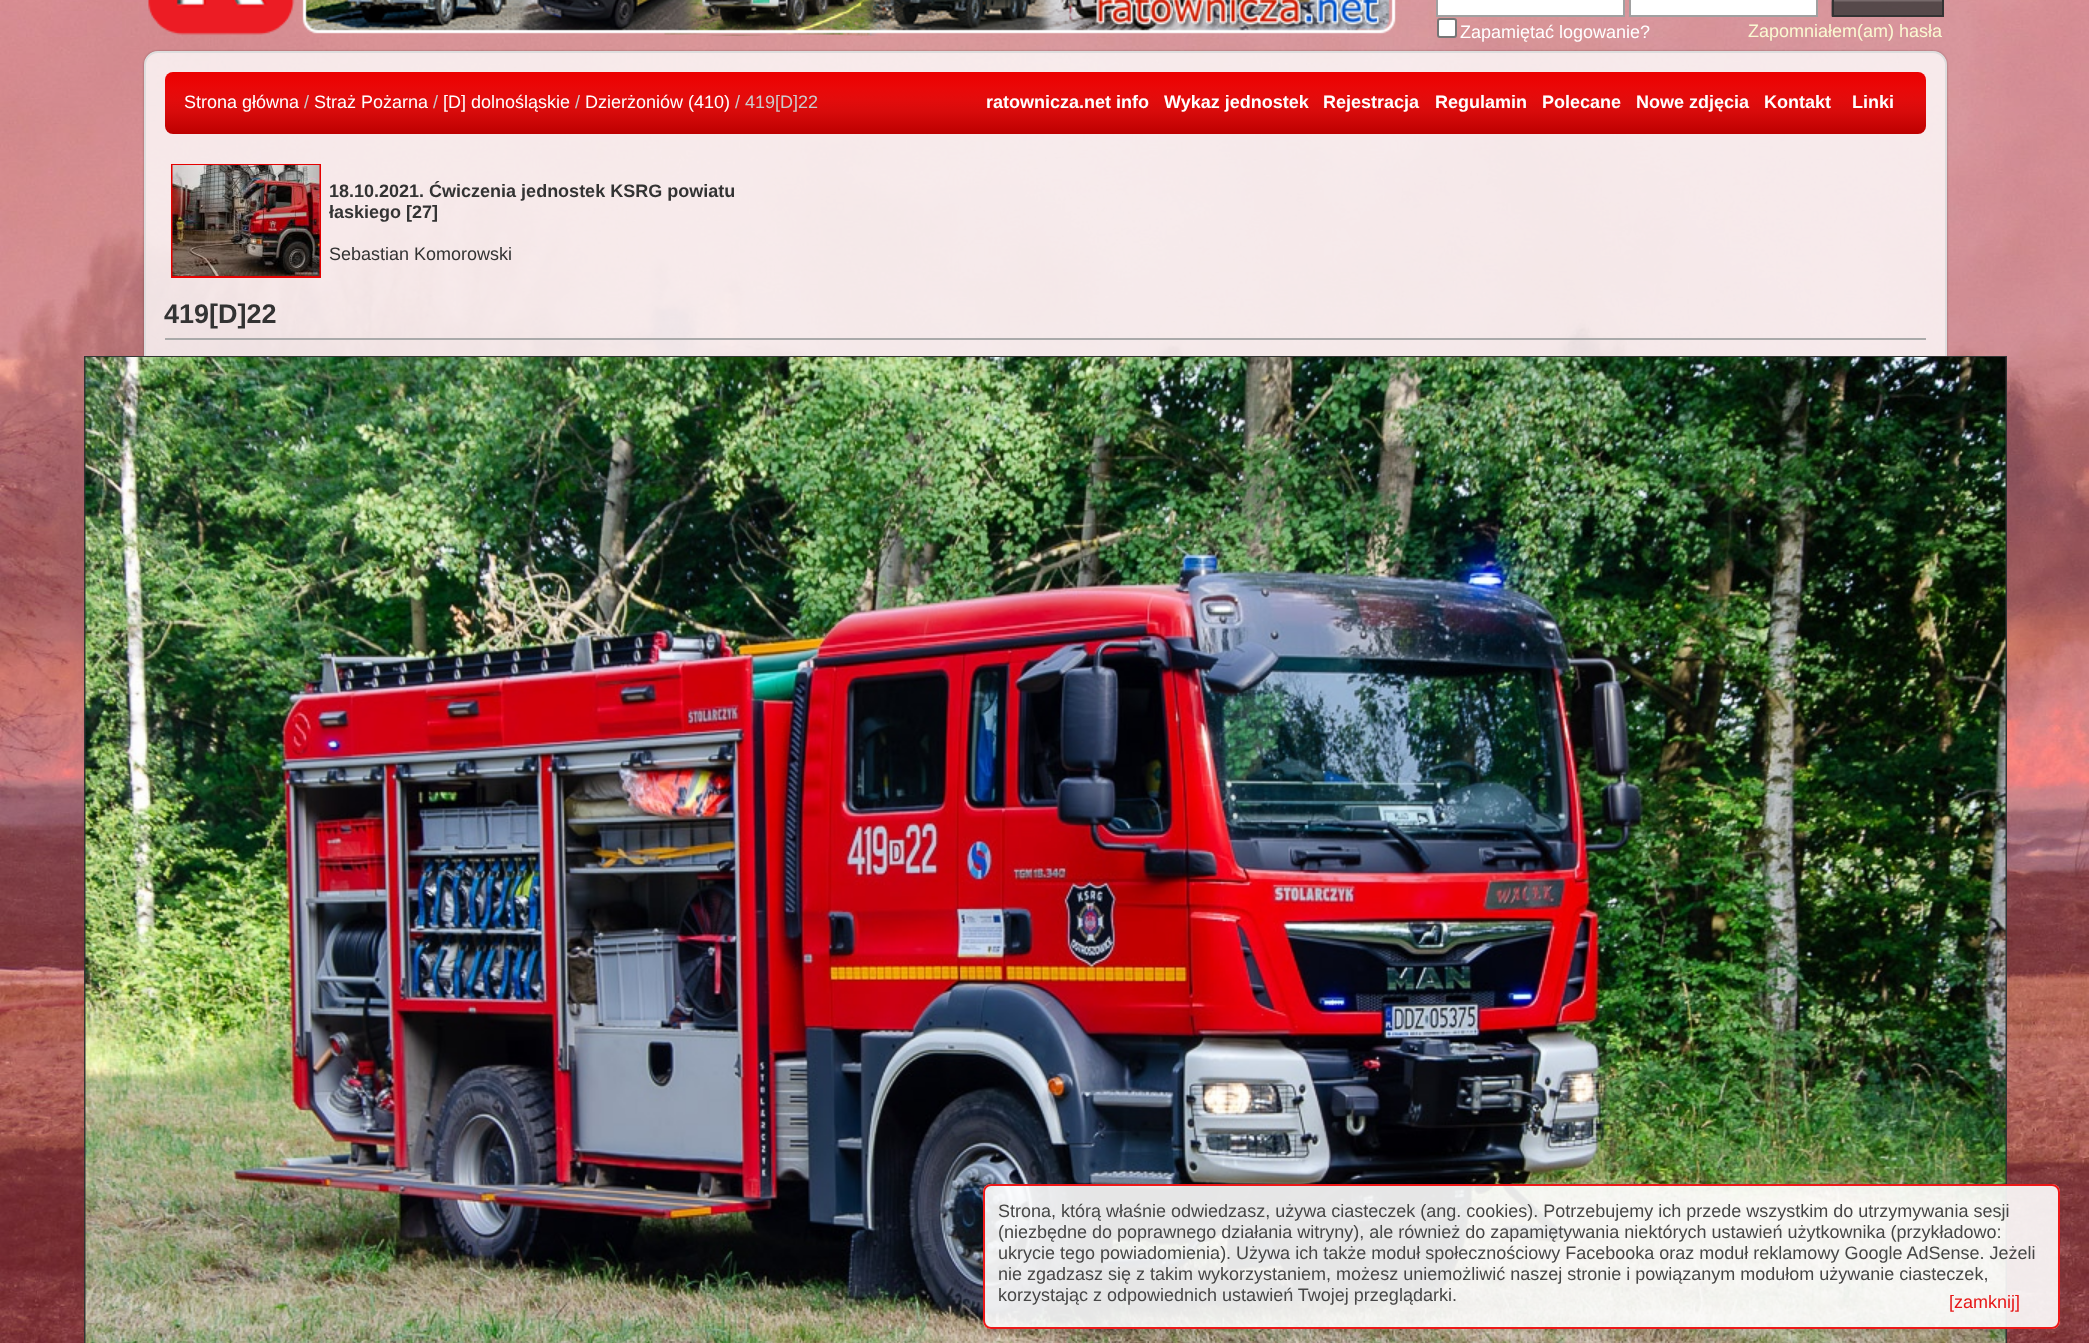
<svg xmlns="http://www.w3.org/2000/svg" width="2089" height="1343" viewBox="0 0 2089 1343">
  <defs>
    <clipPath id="clip1"><path d="M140 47H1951V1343H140ZM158 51H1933C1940.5 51 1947 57.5 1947 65V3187C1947 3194.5 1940.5 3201 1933 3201H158C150.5 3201 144 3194.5 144 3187V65C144 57.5 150.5 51 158 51Z" clip-rule="evenodd"/></clipPath>
    <filter id="blur1" x="-50%" y="-200%" width="200%" height="500%"><feGaussianBlur stdDeviation="1"/></filter>
    <linearGradient id="g1" gradientUnits="userSpaceOnUse" x1="1046" y1="72" x2="1046" y2="134"><stop offset="0" stop-color="#ec0000"/><stop offset="0.24" stop-color="#ea0808"/><stop offset="0.45" stop-color="#e30c0c"/><stop offset="0.64" stop-color="#d80b0b"/><stop offset="1" stop-color="#bd0000"/></linearGradient>
  </defs>
  <rect width="100%" height="100%" fill="#ffffff"/>
  <image x="0" y="0" width="2089" height="1343" href="img1.png"/>
  <image x="148" y="0" width="1248" height="36" href="img2.png"/>
  <rect x="1437" y="-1" width="187" height="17" fill="#ffffff" stroke="#a0a0a0" stroke-width="2"/>
  <rect x="1630" y="-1" width="187" height="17" fill="#ffffff" stroke="#a0a0a0" stroke-width="2"/>
  <image x="1831" y="0" width="111" height="17" href="img3.png"/>
  <rect x="1833" y="-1" width="110" height="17" fill="none" stroke="#333333" stroke-width="2"/>
  <rect x="1438" y="19" width="18" height="18" rx="2" fill="#ffffff" stroke="#767676" stroke-width="2"/>
  <text x="1460" y="38" font-family="Liberation Sans" font-size="18" fill="#ffffff">Zapamiętać logowanie?</text>
  <text x="1748" y="37" font-family="Liberation Sans" font-size="18" fill="#fafad2">Zapomniałem(am) hasła</text>
  <g clip-path="url(#clip1)">
    <rect x="144" y="51" width="1803" height="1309" rx="14" fill="#000000" fill-opacity="0.3" filter="url(#blur1)"/>
  </g>
  <rect x="145" y="52" width="1801" height="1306" rx="13" fill="#ffffff" fill-opacity="0.8" stroke="#dddddd" stroke-width="2"/>
  <rect x="165" y="72" width="1761" height="62" rx="8" fill="url(#g1)"/>
  <text x="184" y="108" font-family="Liberation Sans" font-size="18" fill="#ffffff">Strona główna</text>
  <text x="304" y="108" font-family="Liberation Sans" font-size="18" fill="#cccccc">/</text>
  <text x="314" y="108" font-family="Liberation Sans" font-size="18" fill="#ffffff">Straż Pożarna</text>
  <text x="433" y="108" font-family="Liberation Sans" font-size="18" fill="#cccccc">/</text>
  <text x="443" y="108" font-family="Liberation Sans" font-size="18" fill="#ffffff">[D] dolnośląskie</text>
  <text x="575" y="108" font-family="Liberation Sans" font-size="18" fill="#cccccc">/</text>
  <text x="585" y="108" font-family="Liberation Sans" font-size="18" fill="#ffffff">Dzierżoniów (410)</text>
  <text x="735" y="108" font-family="Liberation Sans" font-size="18" fill="#cccccc">/ 419[D]22</text>
  <text x="986" y="108" font-family="Liberation Sans" font-size="18" font-weight="bold" fill="#ffffff">ratownicza.net info</text>
  <text x="1164" y="108" font-family="Liberation Sans" font-size="18" font-weight="bold" fill="#ffffff">Wykaz jednostek</text>
  <text x="1323" y="108" font-family="Liberation Sans" font-size="18" font-weight="bold" fill="#ffffff">Rejestracja</text>
  <text x="1435" y="108" font-family="Liberation Sans" font-size="18" font-weight="bold" fill="#ffffff">Regulamin</text>
  <text x="1542" y="108" font-family="Liberation Sans" font-size="18" font-weight="bold" fill="#ffffff">Polecane</text>
  <text x="1636" y="108" font-family="Liberation Sans" font-size="18" font-weight="bold" fill="#ffffff">Nowe zdjęcia</text>
  <text x="1764" y="108" font-family="Liberation Sans" font-size="18" font-weight="bold" fill="#ffffff">Kontakt</text>
  <text x="1852" y="108" font-family="Liberation Sans" font-size="18" font-weight="bold" fill="#ffffff">Linki</text>
  <rect x="172" y="165" width="148" height="112" fill="none" stroke="#e50000" stroke-width="2"/>
  <image x="172" y="165" width="148" height="111" href="img4.png"/>
  <text x="329" y="197" font-family="Liberation Sans" font-size="18" font-weight="bold" fill="#333333">18.10.2021. Ćwiczenia jednostek KSRG powiatu</text>
  <text x="329" y="218" font-family="Liberation Sans" font-size="18" font-weight="bold" fill="#333333">łaskiego [27]</text>
  <text x="329" y="260" font-family="Liberation Sans" font-size="18" fill="#333333">Sebastian Komorowski</text>
  <text x="164" y="323" font-family="Liberation Sans" font-size="27" font-weight="bold" fill="#333333">419[D]22</text>
  <rect x="165" y="338" width="1761" height="2" fill="#aaaaaa"/>
  <rect x="85" y="357" width="1921" height="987" fill="none" stroke="#333333" stroke-width="2"/>
  <image x="85" y="357" width="1921" height="986" href="img5.png"/>
  <rect x="983" y="1184" width="1077" height="145" rx="8" fill="#ffffff" fill-opacity="0.9"/>
  <rect x="984" y="1185" width="1075" height="143" rx="7" fill="none" stroke="#ec0000" stroke-opacity="0.9" stroke-width="2"/>
  <text x="998" y="1217" font-family="Liberation Sans" font-size="18" fill="#464646">Strona, którą właśnie odwiedzasz, używa ciasteczek (ang. cookies). Potrzebujemy ich przede wszystkim do utrzymywania sesji</text>
  <text x="998" y="1238" font-family="Liberation Sans" font-size="18" fill="#464646">(niezbędne do poprawnego działania witryny), ale również do zapamiętywania niektórych ustawień użytkownika (przykładowo:</text>
  <text x="998" y="1259" font-family="Liberation Sans" font-size="18" fill="#464646">ukrycie tego powiadomienia). Używa ich także moduł społecznościowy Facebooka oraz moduł reklamowy Google AdSense. Jeżeli</text>
  <text x="998" y="1280" font-family="Liberation Sans" font-size="18" fill="#464646">nie zgadzasz się z takim wykorzystaniem, możesz uniemożliwić naszej stronie i powiązanym modułom używanie ciasteczek,</text>
  <text x="998" y="1301" font-family="Liberation Sans" font-size="18" fill="#464646">korzystając z odpowiednich ustawień Twojej przeglądarki.</text>
  <text x="1949" y="1308" font-family="Liberation Sans" font-size="18" fill="#e71818">[zamknij]</text>
</svg>
